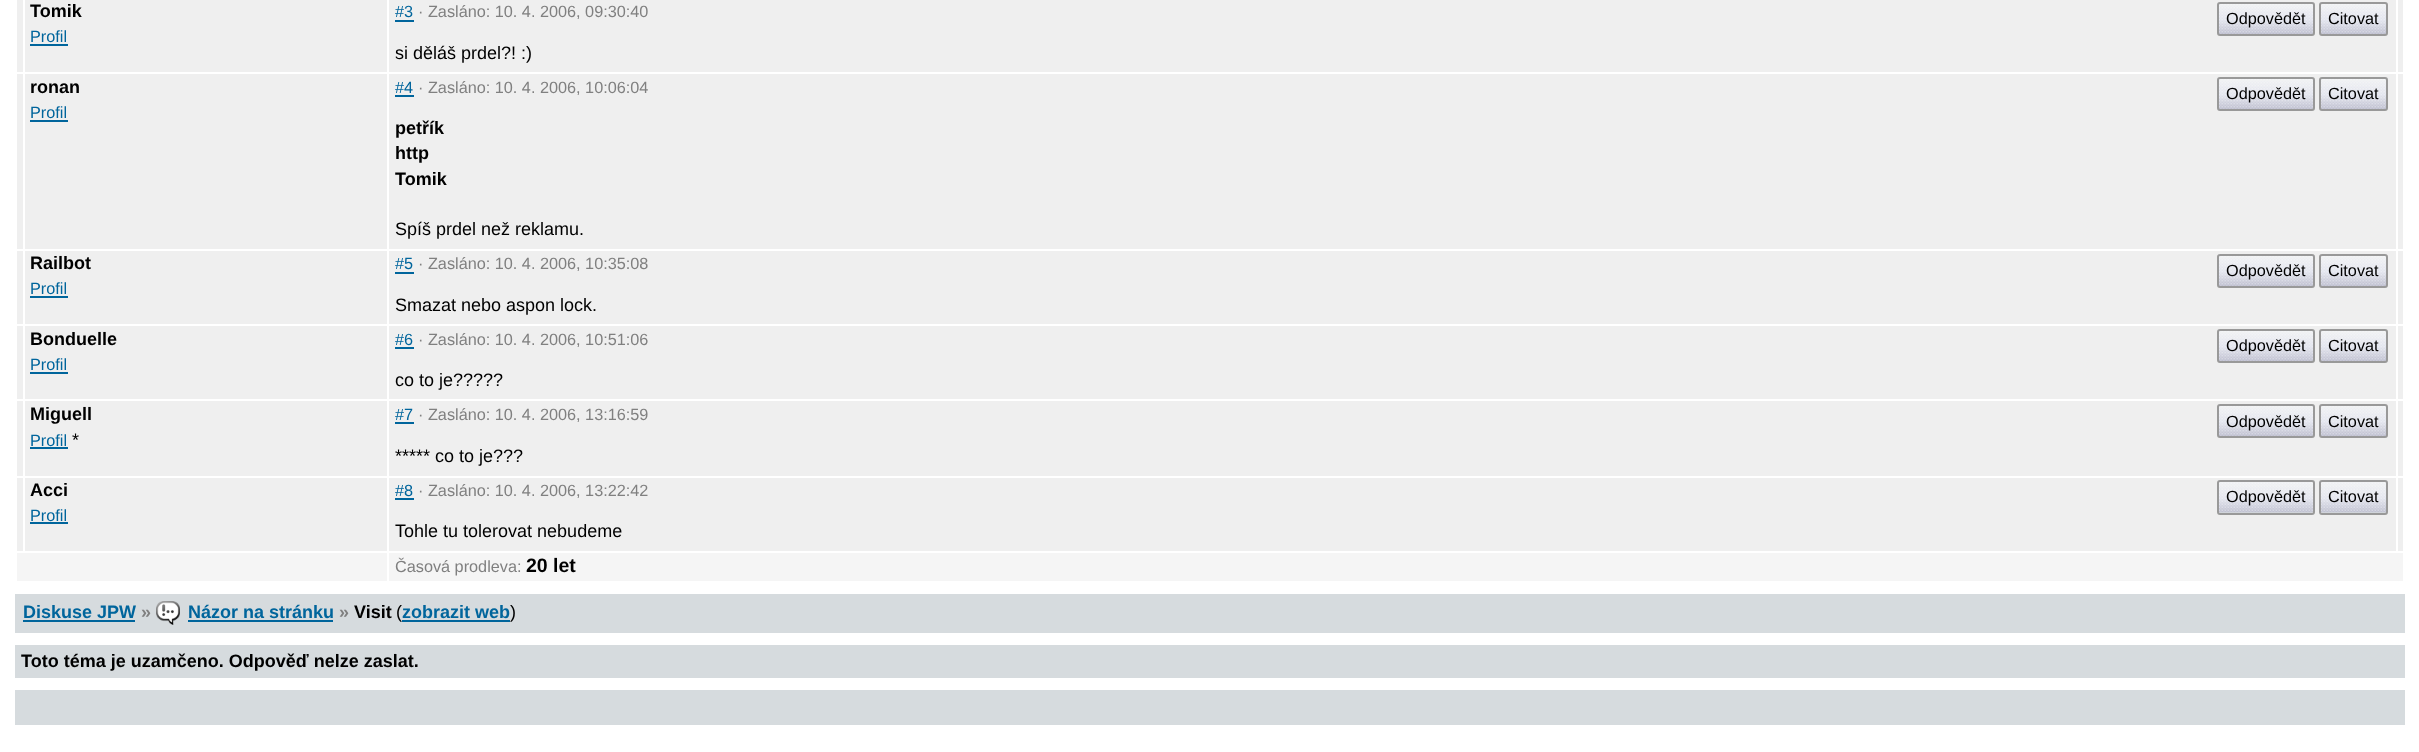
<svg xmlns="http://www.w3.org/2000/svg" width="2419" height="752" viewBox="0 0 2419 752">
  <rect width="100%" height="100%" fill="#ffffff"/>
  <rect x="17" y="0" width="2386" height="72" fill="#efefef"/>
  <text x="30" y="17" font-family="Liberation Sans" font-size="18" font-weight="bold" fill="#000000">Tomik</text>
  <text x="30" y="42" font-family="Liberation Sans" font-size="16.25" fill="#00659c">Profil</text>
  <rect x="30" y="44" width="38" height="2" fill="#00659c"/>
  <text x="395" y="17" font-family="Liberation Sans" font-size="16.25" fill="#00659c">#3</text>
  <rect x="395" y="20" width="19" height="2" fill="#00659c"/>
  <text x="418" y="17" font-family="Liberation Sans" font-size="16.25" fill="#808080">· Zasláno: 10. 4. 2006, 09:30:40</text>
  <rect x="2219" y="4" width="94" height="30" fill="#d6dbde"/>
  <image x="2219" y="4" width="94" height="30" href="img1.png"/>
  <rect x="2218" y="3" width="96" height="32" rx="2" fill="none" stroke="#999999" stroke-width="2"/>
  <text x="2226" y="24" font-family="Liberation Sans" font-size="16.25" fill="#000000">Odpovědět</text>
  <rect x="2321" y="4" width="65" height="30" fill="#d6dbde"/>
  <image x="2321" y="4" width="65" height="30" href="img2.png"/>
  <rect x="2320" y="3" width="67" height="32" rx="2" fill="none" stroke="#999999" stroke-width="2"/>
  <text x="2328" y="24" font-family="Liberation Sans" font-size="16.25" fill="#000000">Citovat</text>
  <text x="395" y="59" font-family="Liberation Sans" font-size="18" fill="#000000">si děláš prdel?! :)</text>
  <rect x="17" y="74" width="2386" height="175" fill="#efefef"/>
  <text x="30" y="93" font-family="Liberation Sans" font-size="18" font-weight="bold" fill="#000000">ronan</text>
  <text x="30" y="118" font-family="Liberation Sans" font-size="16.25" fill="#00659c">Profil</text>
  <rect x="30" y="120" width="38" height="2" fill="#00659c"/>
  <text x="395" y="93" font-family="Liberation Sans" font-size="16.25" fill="#00659c">#4</text>
  <rect x="395" y="95" width="19" height="2" fill="#00659c"/>
  <text x="418" y="93" font-family="Liberation Sans" font-size="16.25" fill="#808080">· Zasláno: 10. 4. 2006, 10:06:04</text>
  <rect x="2219" y="79" width="94" height="30" fill="#d6dbde"/>
  <image x="2219" y="79" width="94" height="30" href="img1.png"/>
  <rect x="2218" y="78" width="96" height="32" rx="2" fill="none" stroke="#999999" stroke-width="2"/>
  <text x="2226" y="99" font-family="Liberation Sans" font-size="16.25" fill="#000000">Odpovědět</text>
  <rect x="2321" y="79" width="65" height="30" fill="#d6dbde"/>
  <image x="2321" y="79" width="65" height="30" href="img2.png"/>
  <rect x="2320" y="78" width="67" height="32" rx="2" fill="none" stroke="#999999" stroke-width="2"/>
  <text x="2328" y="99" font-family="Liberation Sans" font-size="16.25" fill="#000000">Citovat</text>
  <text x="395" y="134" font-family="Liberation Sans" font-size="18" font-weight="bold" fill="#000000">petřík</text>
  <text x="395" y="159" font-family="Liberation Sans" font-size="18" font-weight="bold" fill="#000000">http</text>
  <text x="395" y="185" font-family="Liberation Sans" font-size="18" font-weight="bold" fill="#000000">Tomik</text>
  <text x="395" y="235" font-family="Liberation Sans" font-size="18" fill="#000000">Spíš prdel než reklamu.</text>
  <rect x="17" y="251" width="2386" height="73" fill="#efefef"/>
  <text x="30" y="269" font-family="Liberation Sans" font-size="18" font-weight="bold" fill="#000000">Railbot</text>
  <text x="30" y="294" font-family="Liberation Sans" font-size="16.25" fill="#00659c">Profil</text>
  <rect x="30" y="296" width="38" height="2" fill="#00659c"/>
  <text x="395" y="269" font-family="Liberation Sans" font-size="16.25" fill="#00659c">#5</text>
  <rect x="395" y="272" width="19" height="2" fill="#00659c"/>
  <text x="418" y="269" font-family="Liberation Sans" font-size="16.25" fill="#808080">· Zasláno: 10. 4. 2006, 10:35:08</text>
  <rect x="2219" y="256" width="94" height="30" fill="#d6dbde"/>
  <image x="2219" y="256" width="94" height="30" href="img1.png"/>
  <rect x="2218" y="255" width="96" height="32" rx="2" fill="none" stroke="#999999" stroke-width="2"/>
  <text x="2226" y="276" font-family="Liberation Sans" font-size="16.25" fill="#000000">Odpovědět</text>
  <rect x="2321" y="256" width="65" height="30" fill="#d6dbde"/>
  <image x="2321" y="256" width="65" height="30" href="img2.png"/>
  <rect x="2320" y="255" width="67" height="32" rx="2" fill="none" stroke="#999999" stroke-width="2"/>
  <text x="2328" y="276" font-family="Liberation Sans" font-size="16.25" fill="#000000">Citovat</text>
  <text x="395" y="311" font-family="Liberation Sans" font-size="18" fill="#000000">Smazat nebo aspon lock.</text>
  <rect x="17" y="326" width="2386" height="73" fill="#efefef"/>
  <text x="30" y="345" font-family="Liberation Sans" font-size="18" font-weight="bold" fill="#000000">Bonduelle</text>
  <text x="30" y="370" font-family="Liberation Sans" font-size="16.25" fill="#00659c">Profil</text>
  <rect x="30" y="372" width="38" height="2" fill="#00659c"/>
  <text x="395" y="345" font-family="Liberation Sans" font-size="16.25" fill="#00659c">#6</text>
  <rect x="395" y="347" width="19" height="2" fill="#00659c"/>
  <text x="418" y="345" font-family="Liberation Sans" font-size="16.25" fill="#808080">· Zasláno: 10. 4. 2006, 10:51:06</text>
  <rect x="2219" y="331" width="94" height="30" fill="#d6dbde"/>
  <image x="2219" y="331" width="94" height="30" href="img1.png"/>
  <rect x="2218" y="330" width="96" height="32" rx="2" fill="none" stroke="#999999" stroke-width="2"/>
  <text x="2226" y="351" font-family="Liberation Sans" font-size="16.25" fill="#000000">Odpovědět</text>
  <rect x="2321" y="331" width="65" height="30" fill="#d6dbde"/>
  <image x="2321" y="331" width="65" height="30" href="img2.png"/>
  <rect x="2320" y="330" width="67" height="32" rx="2" fill="none" stroke="#999999" stroke-width="2"/>
  <text x="2328" y="351" font-family="Liberation Sans" font-size="16.25" fill="#000000">Citovat</text>
  <text x="395" y="386" font-family="Liberation Sans" font-size="18" fill="#000000">co to je?????</text>
  <rect x="17" y="401" width="2386" height="75" fill="#efefef"/>
  <text x="30" y="420" font-family="Liberation Sans" font-size="18" font-weight="bold" fill="#000000">Miguell</text>
  <text x="30" y="446" font-family="Liberation Sans" font-size="16.25" fill="#00659c">Profil</text>
  <rect x="30" y="447" width="38" height="2" fill="#00659c"/>
  <text x="72" y="446" font-family="Liberation Sans" font-size="18" fill="#000000">*</text>
  <text x="395" y="420" font-family="Liberation Sans" font-size="16.25" fill="#00659c">#7</text>
  <rect x="395" y="422" width="19" height="2" fill="#00659c"/>
  <text x="418" y="420" font-family="Liberation Sans" font-size="16.25" fill="#808080">· Zasláno: 10. 4. 2006, 13:16:59</text>
  <rect x="2219" y="406" width="94" height="30" fill="#d6dbde"/>
  <image x="2219" y="406" width="94" height="30" href="img1.png"/>
  <rect x="2218" y="405" width="96" height="32" rx="2" fill="none" stroke="#999999" stroke-width="2"/>
  <text x="2226" y="427" font-family="Liberation Sans" font-size="16.25" fill="#000000">Odpovědět</text>
  <rect x="2321" y="406" width="65" height="30" fill="#d6dbde"/>
  <image x="2321" y="406" width="65" height="30" href="img2.png"/>
  <rect x="2320" y="405" width="67" height="32" rx="2" fill="none" stroke="#999999" stroke-width="2"/>
  <text x="2328" y="427" font-family="Liberation Sans" font-size="16.25" fill="#000000">Citovat</text>
  <text x="395" y="462" font-family="Liberation Sans" font-size="18" fill="#000000">***** co to je???</text>
  <rect x="17" y="478" width="2386" height="73" fill="#efefef"/>
  <rect x="23" y="0" width="2" height="552" fill="#ffffff"/>
  <text x="30" y="496" font-family="Liberation Sans" font-size="18" font-weight="bold" fill="#000000">Acci</text>
  <text x="30" y="521" font-family="Liberation Sans" font-size="16.25" fill="#00659c">Profil</text>
  <rect x="30" y="522" width="38" height="2" fill="#00659c"/>
  <rect x="387" y="0" width="2" height="552" fill="#ffffff"/>
  <text x="395" y="496" font-family="Liberation Sans" font-size="16.25" fill="#00659c">#8</text>
  <rect x="395" y="498" width="19" height="2" fill="#00659c"/>
  <text x="418" y="496" font-family="Liberation Sans" font-size="16.25" fill="#808080">· Zasláno: 10. 4. 2006, 13:22:42</text>
  <rect x="2219" y="482" width="94" height="31" rx="1.5" fill="#d6dbde"/>
  <image x="2219" y="482" width="94" height="31" href="img3.png"/>
  <rect x="2218" y="481" width="96" height="33" rx="2" fill="none" stroke="#999999" stroke-width="2"/>
  <text x="2226" y="502" font-family="Liberation Sans" font-size="16.25" fill="#000000">Odpovědět</text>
  <rect x="2321" y="482" width="66" height="31" rx="1.5" fill="#d6dbde"/>
  <image x="2321" y="482" width="65" height="31" href="img4.png"/>
  <rect x="2320" y="481" width="67" height="33" rx="2" fill="none" stroke="#999999" stroke-width="2"/>
  <text x="2328" y="502" font-family="Liberation Sans" font-size="16.25" fill="#000000">Citovat</text>
  <text x="395" y="537" font-family="Liberation Sans" font-size="18" fill="#000000">Tohle tu tolerovat nebudeme</text>
  <rect x="2396" y="0" width="2" height="552" fill="#ffffff"/>
  <rect x="17" y="553" width="370" height="28" fill="#f5f5f5"/>
  <rect x="389" y="553" width="2014" height="28" fill="#f5f5f5"/>
  <text x="395" y="572" font-family="Liberation Sans" font-size="16.25" fill="#808080">Časová prodleva:</text>
  <text x="526" y="572" font-family="Liberation Sans" font-size="19.5" font-weight="bold" fill="#000000">20 let</text>
  <rect x="15" y="594" width="2390" height="39" fill="#d6dbde"/>
  <text x="23" y="618" font-family="Liberation Sans" font-size="18" font-weight="bold" fill="#00659c">Diskuse JPW</text>
  <rect x="23" y="620" width="112" height="2" fill="#00659c"/>
  <text x="141" y="618" font-family="Liberation Sans" font-size="18" font-weight="bold" fill="#808080">»</text>
  <image x="156" y="601" width="24" height="24" href="img5.png"/>
  <text x="188" y="618" font-family="Liberation Sans" font-size="18" font-weight="bold" fill="#00659c">Názor na stránku</text>
  <rect x="188" y="620" width="145" height="2" fill="#00659c"/>
  <text x="339" y="618" font-family="Liberation Sans" font-size="18" font-weight="bold" fill="#808080">»</text>
  <text x="354" y="618" font-family="Liberation Sans" font-size="18" font-weight="bold" fill="#000000">Visit</text>
  <text x="396" y="618" font-family="Liberation Sans" font-size="18" fill="#000000">(</text>
  <text x="402" y="618" font-family="Liberation Sans" font-size="18" font-weight="bold" fill="#00659c">zobrazit web</text>
  <rect x="402" y="620" width="108" height="2" fill="#00659c"/>
  <text x="510" y="618" font-family="Liberation Sans" font-size="18" fill="#000000">)</text>
  <rect x="15" y="645" width="2390" height="33" fill="#d6dbde"/>
  <text x="21" y="667" font-family="Liberation Sans" font-size="18" font-weight="bold" fill="#000000">Toto téma je uzamčeno. Odpověď nelze zaslat.</text>
  <rect x="15" y="690" width="2390" height="35" fill="#d6dbde"/>
</svg>
